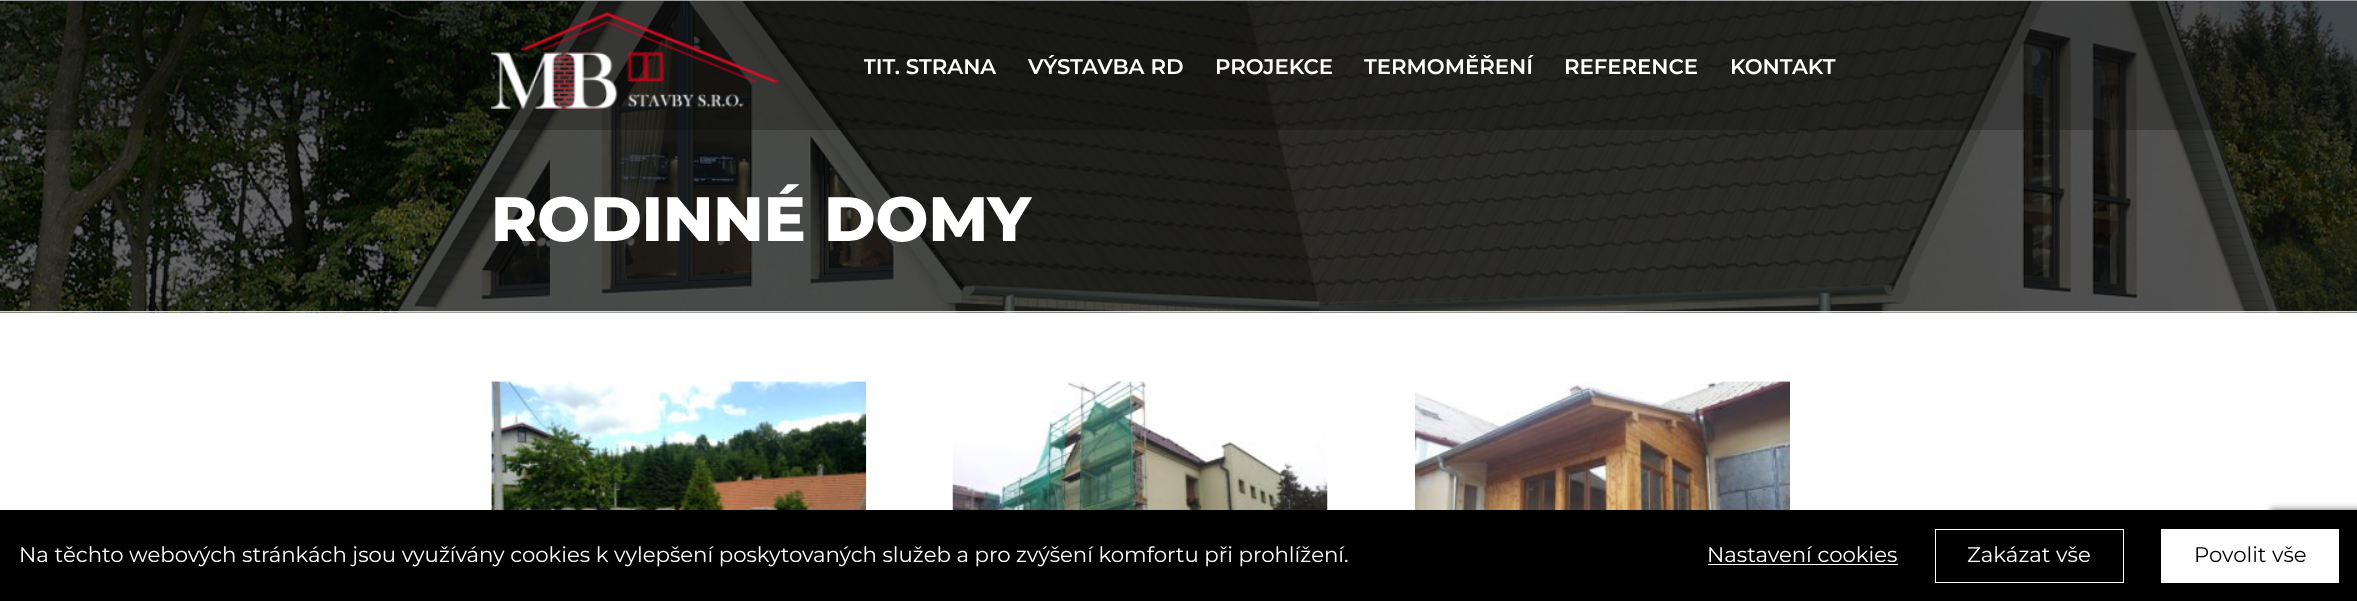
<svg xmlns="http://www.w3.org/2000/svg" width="2357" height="601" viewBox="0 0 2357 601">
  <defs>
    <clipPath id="clip1"><rect x="864" y="0" width="1002" height="130"/></clipPath>
    <filter id="blur1" x="-50%" y="-200%" width="200%" height="500%"><feGaussianBlur stdDeviation="3"/></filter>
  </defs>
  <rect width="100%" height="100%" fill="#ffffff"/>
  <rect x="0" y="312" width="2357" height="1" fill="#f6f6f6"/>
  <image x="0" y="1" width="2357" height="312" href="img2.png"/>
  <rect x="0" y="0" width="2357" height="1" fill="#d2d3d4"/>
  <rect x="0" y="0" width="2357" height="130" fill="#0a0a0a" fill-opacity="0.28"/>
  <image x="491" y="12" width="288" height="97" href="img1.png"/>
  <g clip-path="url(#clip1)">
    <text x="863" y="74" font-family="Montserrat" font-size="21.25" font-weight="600" fill="#ffffff">TIT. STRANA</text>
  </g>
  <text x="1028" y="74" font-family="Montserrat" font-size="21.25" font-weight="600" fill="#ffffff">VÝSTAVBA RD</text>
  <text x="1215" y="74" font-family="Montserrat" font-size="21.25" font-weight="600" fill="#ffffff">PROJEKCE</text>
  <text x="1364" y="74" font-family="Montserrat" font-size="21.25" font-weight="600" fill="#ffffff">TERMOMĚŘENÍ</text>
  <text x="1564" y="74" font-family="Montserrat" font-size="21.25" font-weight="600" fill="#ffffff">REFERENCE</text>
  <text x="1730" y="74" font-family="Montserrat" font-size="21.25" font-weight="600" fill="#ffffff">KONTAKT</text>
  <rect x="0" y="311" width="2357" height="1" fill="#d2d3d4"/>
  <text x="491" y="241" font-family="Montserrat" font-size="62.5" font-weight="800" fill="#ffffff">RODINNÉ DOMY</text>
  <image x="491" y="381" width="376" height="129" href="img3.png"/>
  <image x="952" y="381" width="376" height="129" href="img4.png"/>
  <image x="1415" y="381" width="375" height="129" href="img5.png"/>
  <rect x="2270" y="509" width="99" height="75" rx="2.5" fill="#808080" filter="url(#blur1)"/>
  <rect x="0" y="510" width="2357" height="91" fill="#000000"/>
  <text x="19" y="562" font-family="Montserrat" font-size="21.25" fill="#ffffff">Na těchto webových stránkách jsou využívány cookies k vylepšení poskytovaných služeb a pro zvýšení komfortu při prohlížení.</text>
  <text x="1707" y="562" font-family="Montserrat" font-size="21.25" fill="#ffffff">Nastavení cookies</text>
  <rect x="1708" y="564" width="190" height="1" fill="#ffffff"/>
  <rect x="1935.5" y="529.5" width="188" height="53" fill="none" stroke="#ffffff"/>
  <text x="1967" y="562" font-family="Montserrat" font-size="21.25" fill="#ffffff">Zakázat vše</text>
  <rect x="2161" y="529" width="178" height="54" fill="#ffffff"/>
  <text x="2194" y="562" font-family="Montserrat" font-size="21.25" fill="#000000">Povolit vše</text>
</svg>
